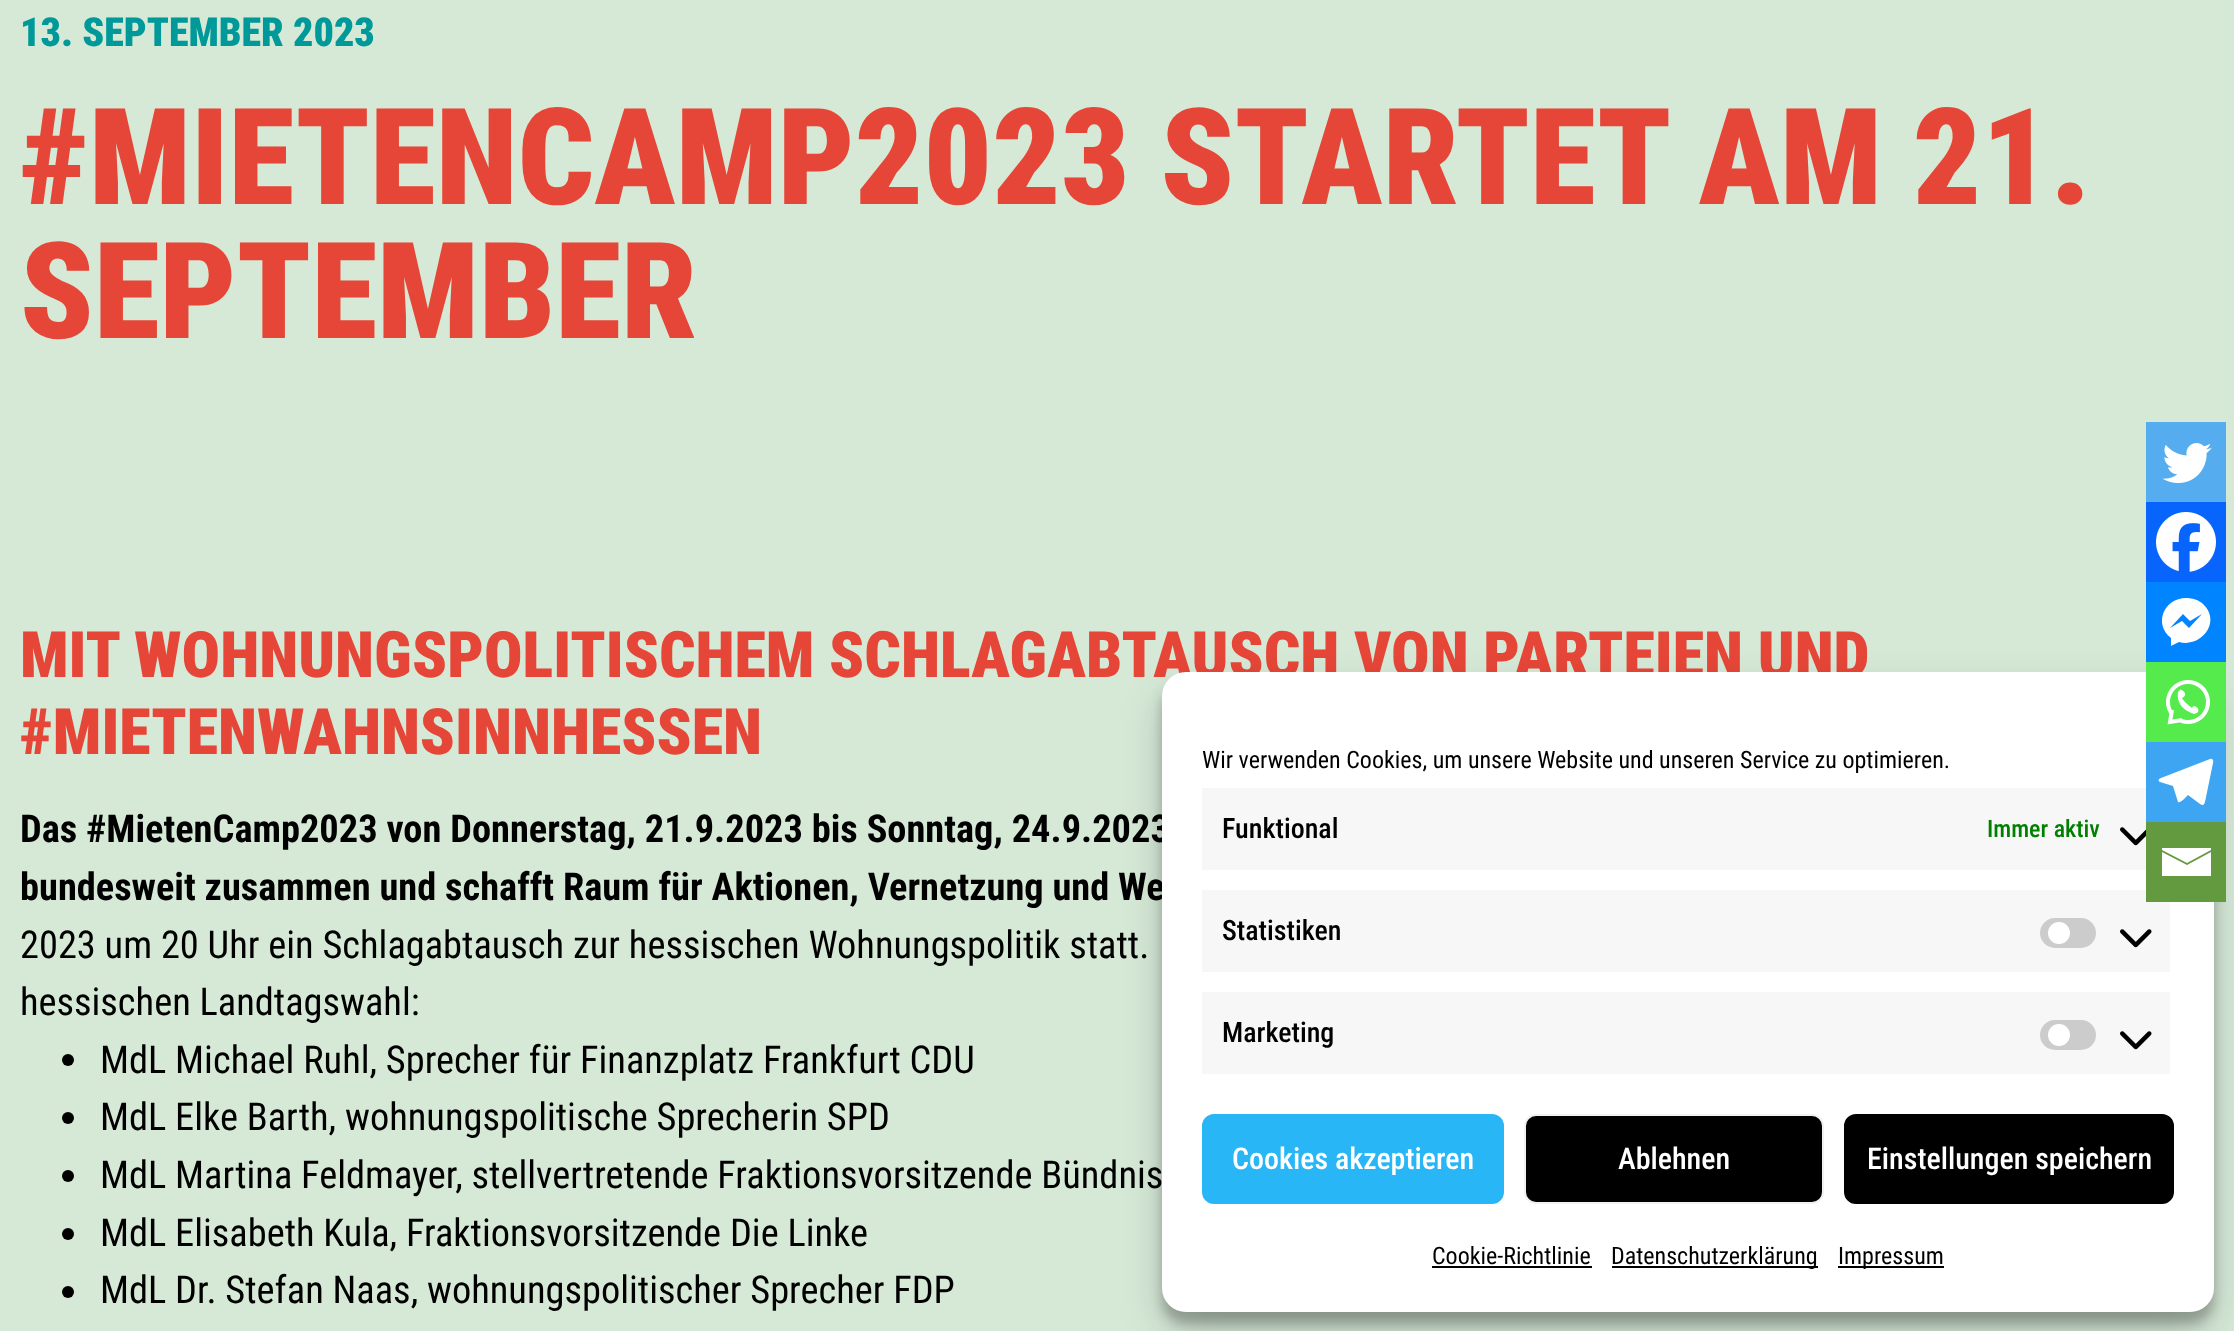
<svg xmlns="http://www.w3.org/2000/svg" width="2234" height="1331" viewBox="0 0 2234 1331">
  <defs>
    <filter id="blur1" x="-50%" y="-200%" width="200%" height="500%"><feGaussianBlur stdDeviation="20"/></filter>
    <filter id="blur2" x="-50%" y="-200%" width="200%" height="500%"><feGaussianBlur stdDeviation="6"/></filter>
  </defs>
  <rect width="100%" height="100%" fill="#d6e9d7"/>
  <text x="20" y="46" font-family="Roboto Condensed" font-size="40" font-weight="900" fill="#009999">13. SEPTEMBER 2023</text>
  <text x="20" y="204" font-family="Roboto Condensed" font-size="134.4" font-weight="900" fill="#e64637">#MIETENCAMP2023 STARTET AM 21.</text>
  <text x="20" y="338" font-family="Roboto Condensed" font-size="134.4" font-weight="900" fill="#e64637">SEPTEMBER</text>
  <text x="20" y="677" font-family="Roboto Condensed" font-size="64" font-weight="900" fill="#e64637">MIT WOHNUNGSPOLITISCHEM SCHLAGABTAUSCH VON PARTEIEN UND</text>
  <text x="20" y="754" font-family="Roboto Condensed" font-size="64" font-weight="900" fill="#e64637">#MIETENWAHNSINNHESSEN</text>
  <text x="20" y="842" font-family="Roboto Condensed" font-size="38.4" font-weight="bold" fill="#000000">Das #MietenCamp2023 von Donnerstag, 21.9.2023 bis Sonntag, 24.9.2023</text>
  <text x="20" y="900" font-family="Roboto Condensed" font-size="38.4" font-weight="bold" fill="#000000">bundesweit zusammen und schafft Raum für Aktionen, Vernetzung und We</text>
  <text x="20" y="958" font-family="Roboto Condensed" font-size="38.4" fill="#000000">2023 um 20 Uhr ein Schlagabtausch zur hessischen Wohnungspolitik statt.</text>
  <text x="20" y="1015" font-family="Roboto Condensed" font-size="38.4" fill="#000000">hessischen Landtagswahl:</text>
  <circle cx="68" cy="1060" r="6" fill="#000000"/>
  <text x="100" y="1073" font-family="Roboto Condensed" font-size="38.4" fill="#000000">MdL Michael Ruhl, Sprecher für Finanzplatz Frankfurt CDU</text>
  <circle cx="68" cy="1118" r="6" fill="#000000"/>
  <text x="100" y="1130" font-family="Roboto Condensed" font-size="38.4" fill="#000000">MdL Elke Barth, wohnungspolitische Sprecherin SPD</text>
  <circle cx="68" cy="1176" r="6" fill="#000000"/>
  <text x="100" y="1188" font-family="Roboto Condensed" font-size="38.4" fill="#000000">MdL Martina Feldmayer, stellvertretende Fraktionsvorsitzende Bündnis</text>
  <circle cx="68" cy="1234" r="6" fill="#000000"/>
  <text x="100" y="1246" font-family="Roboto Condensed" font-size="38.4" fill="#000000">MdL Elisabeth Kula, Fraktionsvorsitzende Die Linke</text>
  <circle cx="68" cy="1292" r="6" fill="#000000"/>
  <text x="100" y="1303" font-family="Roboto Condensed" font-size="38.4" fill="#000000">MdL Dr. Stefan Naas, wohnungspolitischer Sprecher FDP</text>
  <rect x="2146" y="422" width="80" height="80" fill="#55acee"/>
  <image x="2162" y="443" width="50" height="40" href="img1.png"/>
  <rect x="2146" y="502" width="80" height="80" fill="#0765fe"/>
  <image x="2156" y="512" width="60" height="60" href="img2.png"/>
  <rect x="1162" y="692" width="1052" height="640" rx="24" fill="#000000" fill-opacity="0.19" filter="url(#blur1)"/>
  <rect x="2146" y="582" width="80" height="80" fill="#0084ff"/>
  <path d="M2186 598C2164 598 2153 624 2171 638V646L2179 642C2201 648 2222 622 2203 604C2199 600 2192 598 2186 598ZM2189 628L2182 621L2170 628L2183 614L2190 621L2202 614Z" fill="#ffffff"/>
  <rect x="1162" y="684" width="1052" height="640" rx="24" fill="#000000" fill-opacity="0.23" filter="url(#blur2)"/>
  <rect x="1162" y="672" width="1052" height="640" rx="24" fill="#ffffff"/>
  <rect x="2146" y="662" width="80" height="80" fill="#55eb4c"/>
  <image x="2166" y="680" width="44" height="45" href="img3.png"/>
  <rect x="2146" y="742" width="80" height="80" fill="#3da5f1"/>
  <path d="M2210 759L2161 778C2158 779 2158 781 2160 782L2173 786L2178 802C2180 804 2187 796 2188 795L2200 804C2203 806 2204 805 2205 802L2213 763C2214 760 2212 758 2210 759Z" fill="#ffffff"/>
  <rect x="1202" y="890" width="968" height="82" fill="#f7f7f7"/>
  <rect x="2146" y="822" width="80" height="80" fill="#649a3f"/>
  <path d="M2160 848H2211V850L2187 863L2162 850V848M2162 852L2187 865L2211 852V876H2162V852" fill="#ffffff"/>
  <text x="1202" y="768" font-family="Roboto Condensed" font-size="24" fill="#000000">Wir verwenden Cookies, um unsere Website und unseren Service zu optimieren.</text>
  <rect x="1202" y="788" width="944" height="82" fill="#f7f7f7"/>
  <text x="1222" y="838" font-family="Roboto Condensed" font-size="28" font-weight="500" fill="#000000">Funktional</text>
  <text x="1987" y="837" font-family="Roboto Condensed" font-size="24" font-weight="500" fill="#008000">Immer aktiv</text>
  <image x="2120" y="827" width="26" height="19" href="img4.png"/>
  <text x="1222" y="940" font-family="Roboto Condensed" font-size="28" font-weight="500" fill="#000000">Statistiken</text>
  <rect x="2040" y="918" width="56" height="30" rx="15" fill="#cccccc"/>
  <circle cx="2059" cy="933" r="11" fill="#ffffff"/>
  <image x="2120" y="929" width="32" height="19" href="img5.png"/>
  <rect x="1202" y="992" width="968" height="82" fill="#f7f7f7"/>
  <text x="1222" y="1042" font-family="Roboto Condensed" font-size="28" font-weight="500" fill="#000000">Marketing</text>
  <rect x="2040" y="1020" width="56" height="30" rx="15" fill="#cccccc"/>
  <circle cx="2059" cy="1035" r="11" fill="#ffffff"/>
  <image x="2120" y="1031" width="32" height="19" href="img5.png"/>
  <rect x="1203" y="1115" width="300" height="88" rx="11" fill="#29b6f6" stroke="#29b6f6" stroke-width="2"/>
  <text x="1232" y="1169" font-family="Roboto Condensed" font-size="30" font-weight="500" fill="#ffffff">Cookies akzeptieren</text>
  <rect x="1525" y="1115" width="298" height="88" rx="11" fill="#000000" stroke="#f1f1f1" stroke-width="2"/>
  <text x="1618" y="1169" font-family="Roboto Condensed" font-size="30" font-weight="500" fill="#ffffff">Ablehnen</text>
  <rect x="1845" y="1115" width="328" height="88" rx="11" fill="#000000" stroke="#000000" stroke-width="2"/>
  <text x="1867" y="1169" font-family="Roboto Condensed" font-size="30" font-weight="500" fill="#ffffff">Einstellungen speichern</text>
  <text x="1432" y="1264" font-family="Roboto Condensed" font-size="24" fill="#000000">Cookie-Richtlinie</text>
  <rect x="1432" y="1266" width="160" height="2" fill="#000000"/>
  <rect x="1612" y="1266" width="206" height="2" fill="#000000"/>
  <text x="1611" y="1264" font-family="Roboto Condensed" font-size="24" fill="#000000">Datenschutzerklärung</text>
  <rect x="1838" y="1266" width="106" height="2" fill="#000000"/>
  <text x="1838" y="1264" font-family="Roboto Condensed" font-size="24" fill="#000000">Impressum</text>
</svg>
